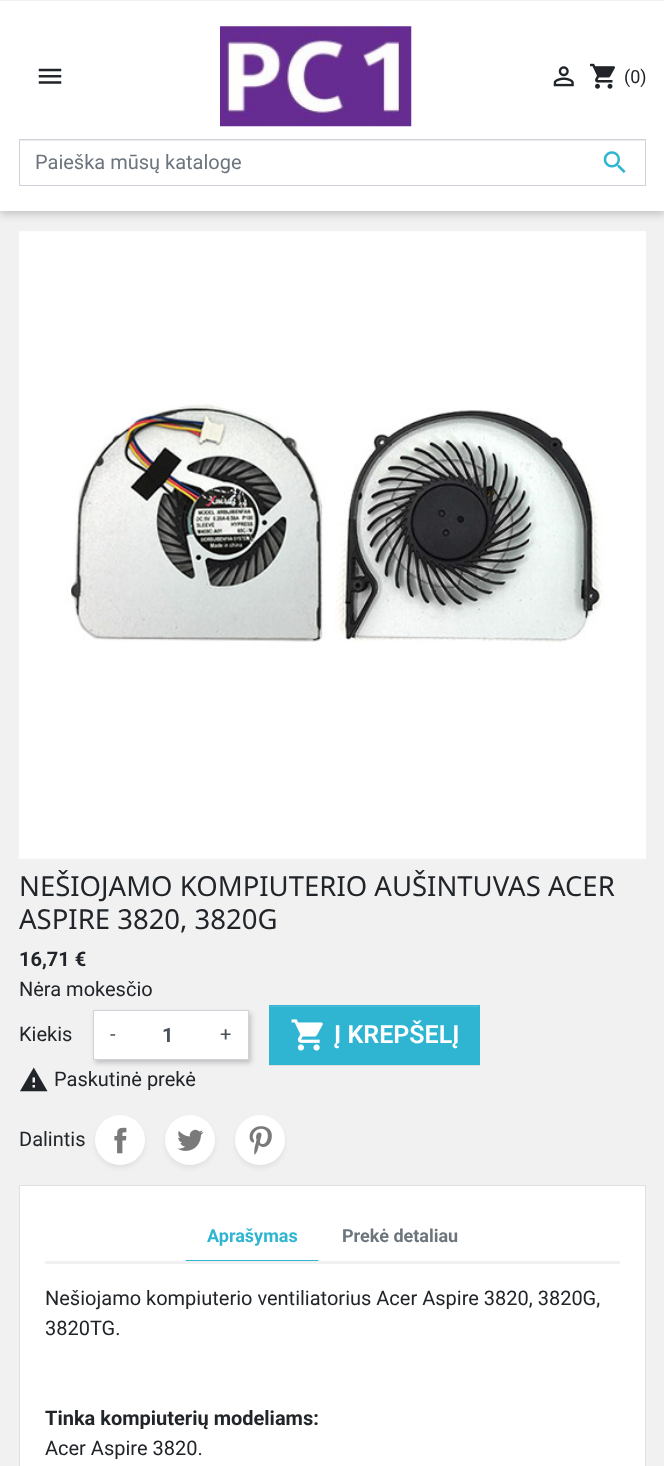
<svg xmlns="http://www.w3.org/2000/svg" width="664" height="1466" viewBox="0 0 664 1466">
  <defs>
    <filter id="blur1" x="-50%" y="-200%" width="200%" height="500%"><feGaussianBlur stdDeviation="4"/></filter>
    <filter id="blur2" x="-50%" y="-200%" width="200%" height="500%"><feGaussianBlur stdDeviation="2.5"/></filter>
    <filter id="blur3" x="-50%" y="-200%" width="200%" height="500%"><feGaussianBlur stdDeviation="0.5"/></filter>
    <clipPath id="clip1"><rect x="45" y="1211" width="575" height="50"/></clipPath>
  </defs>
  <rect width="100%" height="100%" fill="#f1f1f1"/>
  <rect x="0" y="3" width="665" height="211" fill="#000000" fill-opacity="0.2" filter="url(#blur1)"/>
  <rect x="0" y="1" width="664" height="210" fill="#ffffff"/>
  <rect x="0" y="0" width="664" height="1" fill="#f1f1f1"/>
  <image x="38" y="68" width="24" height="16" href="img1.png"/>
  <image x="220" y="26" width="192" height="101" href="img2.png"/>
  <image x="553" y="66" width="21" height="21" href="img3.png"/>
  <image x="590" y="63" width="25" height="26" href="img4.png"/>
  <text x="624" y="83" font-family="Roboto" font-size="18" fill="#212529">(0)</text>
  <rect x="20" y="140" width="625" height="1" fill="#ececec"/>
  <rect x="19.5" y="139.5" width="626" height="46" fill="none" stroke="#ced4da"/>
  <text x="35" y="169" font-family="Roboto" font-size="20" fill="#6c757d">Paieška mūsų kataloge</text>
  <image x="603" y="151" width="23" height="22" href="img5.png"/>
  <image x="19" y="231" width="627" height="628" href="img6.png"/>
  <text x="19" y="896" font-family="Noto Sans" font-size="27.5" fill="#212529">NEŠIOJAMO KOMPIUTERIO AUŠINTUVAS ACER</text>
  <text x="19" y="929" font-family="Noto Sans" font-size="27.5" fill="#212529">ASPIRE 3820, 3820G</text>
  <text x="19" y="966" font-family="Roboto" font-size="20" font-weight="bold" fill="#212529">16,71 €</text>
  <text x="19" y="996" font-family="Roboto" font-size="20" fill="#212529">Nėra mokesčio</text>
  <text x="19" y="1041" font-family="Roboto" font-size="20" fill="#212529">Kiekis</text>
  <rect x="95" y="1013" width="156" height="50" fill="#000000" fill-opacity="0.2" filter="url(#blur2)"/>
  <rect x="93.5" y="1010.5" width="155" height="49" fill="none" stroke="#ced4da"/>
  <rect x="94" y="1011" width="154" height="48" fill="#ffffff"/>
  <text x="110" y="1041" font-family="Roboto" font-size="20" fill="#495057">-</text>
  <text x="162" y="1042" font-family="Roboto" font-size="20" font-weight="bold" fill="#495057">1</text>
  <text x="220" y="1041" font-family="Roboto" font-size="20" fill="#495057">+</text>
  <rect x="269" y="1006" width="211" height="60" fill="#000000" fill-opacity="0.07" filter="url(#blur3)"/>
  <rect x="269" y="1005" width="211" height="60" fill="#2fb5d2"/>
  <rect x="270" y="1006" width="209" height="1" fill="#4ec0d9"/>
  <image x="291" y="1019" width="32" height="32" href="img7.png"/>
  <text x="334" y="1043" font-family="Roboto" font-size="25" font-weight="600" fill="#ffffff">Į KREPŠELĮ</text>
  <image x="20" y="1067" width="28" height="25" href="img8.png"/>
  <text x="54" y="1086" font-family="Roboto" font-size="20" fill="#212529">Paskutinė prekė</text>
  <text x="19" y="1146" font-family="Roboto" font-size="20" fill="#212529">Dalintis</text>
  <rect x="95" y="1118" width="50" height="50" rx="25" fill="#000000" fill-opacity="0.07" filter="url(#blur2)"/>
  <circle cx="120" cy="1140" r="25" fill="#ffffff"/>
  <image x="114" y="1127" width="13" height="27" href="img9.png"/>
  <rect x="165" y="1118" width="50" height="50" rx="25" fill="#000000" fill-opacity="0.07" filter="url(#blur2)"/>
  <circle cx="190" cy="1140" r="25" fill="#ffffff"/>
  <image x="177" y="1129" width="27" height="22" href="img10.png"/>
  <rect x="235" y="1118" width="50" height="50" rx="25" fill="#000000" fill-opacity="0.07" filter="url(#blur2)"/>
  <circle cx="260" cy="1140" r="25" fill="#ffffff"/>
  <image x="249" y="1126" width="23" height="29" href="img11.png"/>
  <rect x="19.5" y="1185.5" width="626" height="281" fill="#ffffff" stroke="#dfdfdf"/>
  <rect x="45" y="1261" width="575" height="3" fill="#f1f1f1"/>
  <g clip-path="url(#clip1)">
    <path d="M320 1264H184L186 1260H318Z" fill="#2fb5d2"/>
  </g>
  <text x="207" y="1242" font-family="Roboto" font-size="18" font-weight="bold" fill="#2fb5d2">Aprašymas</text>
  <text x="342" y="1242" font-family="Roboto" font-size="18" font-weight="bold" fill="#6c757d">Prekė detaliau</text>
  <text x="45" y="1305" font-family="Roboto" font-size="20" fill="#212529">Nešiojamo kompiuterio ventiliatorius Acer Aspire 3820, 3820G,</text>
  <text x="45" y="1335" font-family="Roboto" font-size="20" fill="#212529">3820TG.</text>
  <text x="45" y="1425" font-family="Roboto" font-size="20" font-weight="bold" fill="#212529">Tinka kompiuterių modeliams:</text>
  <text x="45" y="1455" font-family="Roboto" font-size="20" fill="#212529">Acer Aspire 3820.</text>
</svg>
